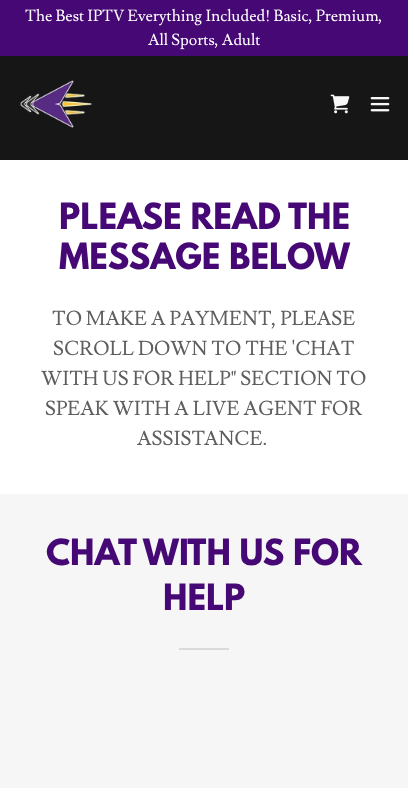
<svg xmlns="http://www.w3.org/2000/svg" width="408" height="788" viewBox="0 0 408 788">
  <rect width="100%" height="100%" fill="#161616"/>
  <rect x="0" y="0" width="408" height="56" fill="#460874"/>
  <text x="25" y="21" font-family="Lusitana" font-size="16" fill="#ffffff">The Best IPTV Everything Included! Basic, Premium,</text>
  <text x="148" y="45" font-family="Lusitana" font-size="16" fill="#ffffff">All Sports, Adult</text>
  <image x="20" y="80" width="72" height="48" href="img1.png"/>
  <image x="330" y="94" width="20" height="20" href="img2.png"/>
  <image x="370" y="97" width="20" height="15" href="img3.png"/>
  <rect x="0" y="160" width="408" height="334" fill="#ffffff"/>
  <text x="59" y="229" font-family="League Spartan" font-size="32" font-weight="bold" fill="#460874">PLEASE READ THE</text>
  <text x="59" y="269" font-family="League Spartan" font-size="32" font-weight="bold" fill="#460874">MESSAGE BELOW</text>
  <text x="52" y="325" font-family="Lusitana" font-size="20" fill="#5e5e5e">TO MAKE A PAYMENT, PLEASE</text>
  <text x="53" y="355" font-family="Lusitana" font-size="20" fill="#5e5e5e">SCROLL DOWN TO THE 'CHAT</text>
  <text x="41" y="385" font-family="Lusitana" font-size="20" fill="#5e5e5e">WITH US FOR HELP" SECTION TO</text>
  <text x="45" y="415" font-family="Lusitana" font-size="20" fill="#5e5e5e">SPEAK WITH A LIVE AGENT FOR</text>
  <text x="137" y="445" font-family="Lusitana" font-size="20" fill="#5e5e5e">ASSISTANCE.</text>
  <rect x="0" y="494" width="408" height="294" fill="#f6f6f6"/>
  <text x="46" y="565" font-family="League Spartan" font-size="32" font-weight="bold" fill="#460874">CHAT WITH US FOR</text>
  <text x="163" y="610" font-family="League Spartan" font-size="32" font-weight="bold" fill="#460874">HELP</text>
  <rect x="179" y="648" width="50" height="2" fill="#dadada"/>
</svg>
